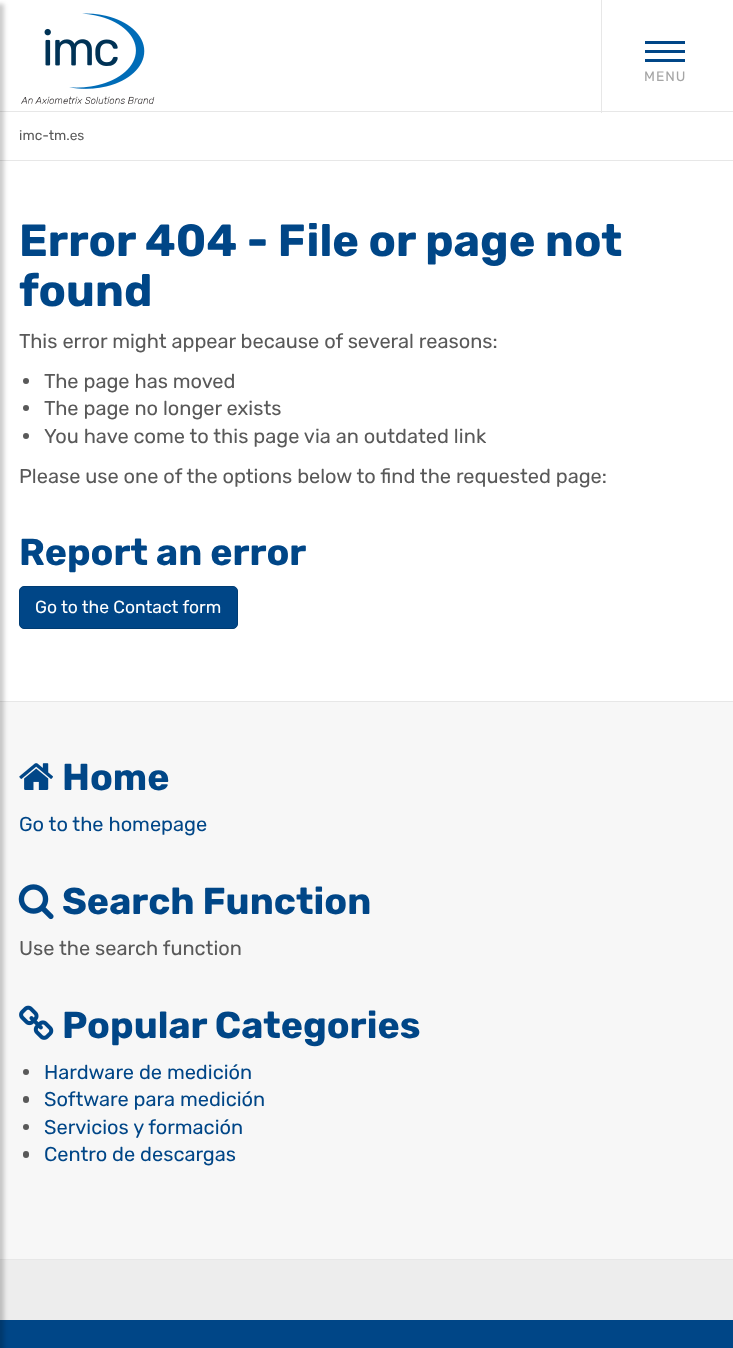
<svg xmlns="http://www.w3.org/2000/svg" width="733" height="1348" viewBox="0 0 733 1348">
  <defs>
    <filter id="blur1" x="-50%" y="-200%" width="200%" height="500%"><feGaussianBlur stdDeviation="2"/></filter>
  </defs>
  <rect width="100%" height="100%" fill="#ffffff"/>
  <rect x="0" y="111" width="733" height="1" fill="#e7e7e7"/>
  <rect x="0" y="160" width="733" height="1" fill="#e7e7e7"/>
  <rect x="0" y="702" width="733" height="557" fill="#f7f7f7"/>
  <rect x="0" y="701" width="733" height="1" fill="#e7e7e7"/>
  <rect x="0" y="1260" width="733" height="60" fill="#ededed"/>
  <rect x="0" y="1259" width="733" height="1" fill="#e7e7e7"/>
  <rect x="0" y="1320" width="733" height="28" fill="#004687"/>
  <rect x="-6" y="4" width="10" height="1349" fill="#000000" fill-opacity="0.2" filter="url(#blur1)"/>
  <image x="21" y="13" width="134" height="91" href="img1.png"/>
  <rect x="601" y="0" width="1" height="113" fill="#e7e7e7"/>
  <rect x="645" y="41" width="40" height="3" fill="#004687"/>
  <rect x="645" y="50" width="40" height="3" fill="#004687"/>
  <rect x="645" y="59" width="40" height="3" fill="#004687"/>
  <text x="644" y="81" font-family="Rubik" font-size="13.75" font-weight="300" letter-spacing="1" fill="#a5a5a5">MENU</text>
  <text x="19" y="140" font-family="Rubik" font-size="13.75" font-weight="300" fill="#595959">imc-tm.es</text>
  <text x="19" y="256" font-family="'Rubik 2'" font-size="45" font-weight="300" fill="#004687">Error 404 - File or page not</text>
  <text x="19" y="306" font-family="'Rubik 2'" font-size="45" font-weight="300" fill="#004687">found</text>
  <text x="19" y="348" font-family="Rubik" font-size="20" font-weight="300" fill="#595959">This error might appear because of several reasons:</text>
  <circle cx="26" cy="381" r="3" fill="#595959"/>
  <text x="44" y="388" font-family="Rubik" font-size="20" font-weight="300" fill="#595959">The page has moved</text>
  <circle cx="26" cy="408" r="3" fill="#595959"/>
  <text x="44" y="415" font-family="Rubik" font-size="20" font-weight="300" fill="#595959">The page no longer exists</text>
  <circle cx="26" cy="436" r="3" fill="#595959"/>
  <text x="44" y="443" font-family="Rubik" font-size="20" font-weight="300" fill="#595959">You have come to this page via an outdated link</text>
  <text x="19" y="483" font-family="Rubik" font-size="20" font-weight="300" fill="#595959">Please use one of the options below to find the requested page:</text>
  <text x="19" y="565" font-family="'Rubik 2'" font-size="37.5" font-weight="300" fill="#004687">Report an error</text>
  <rect x="19.5" y="586.5" width="218" height="42" rx="4.5" fill="#004687" stroke="#003c73"/>
  <text x="35" y="613" font-family="Rubik" font-size="17.5" font-weight="300" fill="#ffffff">Go to the Contact form</text>
  <image x="19" y="763" width="34" height="27" href="img2.png"/>
  <text x="62" y="790" font-family="'Rubik 2'" font-size="37.5" font-weight="300" fill="#004687">Home</text>
  <text x="19" y="831" font-family="Rubik" font-size="20" font-weight="300" fill="#004687">Go to the homepage</text>
  <image x="18" y="884" width="36" height="36" href="img3.png"/>
  <text x="62" y="914" font-family="'Rubik 2'" font-size="37.5" font-weight="300" fill="#004687">Search Function</text>
  <text x="19" y="955" font-family="Rubik" font-size="20" font-weight="300" fill="#595959">Use</text>
  <text x="59" y="955" font-family="Rubik" font-size="20" font-weight="300" fill="#595959">the search function</text>
  <image x="19" y="1005" width="35" height="35" href="img4.png"/>
  <text x="62" y="1038" font-family="'Rubik 2'" font-size="37.5" font-weight="300" fill="#004687">Popular Categories</text>
  <circle cx="26" cy="1072" r="3" fill="#595959"/>
  <text x="44" y="1079" font-family="Rubik" font-size="20" font-weight="300" fill="#004687">Hardware de medición</text>
  <rect x="23" y="1096" width="6" height="7" rx="3" fill="#595959"/>
  <text x="44" y="1106" font-family="Rubik" font-size="20" font-weight="300" fill="#004687">Software para medición</text>
  <circle cx="26" cy="1127" r="3" fill="#595959"/>
  <text x="44" y="1134" font-family="Rubik" font-size="20" font-weight="300" fill="#004687">Servicios y formación</text>
  <rect x="23" y="1151" width="6" height="7" rx="3" fill="#595959"/>
  <text x="44" y="1161" font-family="Rubik" font-size="20" font-weight="300" fill="#004687">Centro de descargas</text>
</svg>
